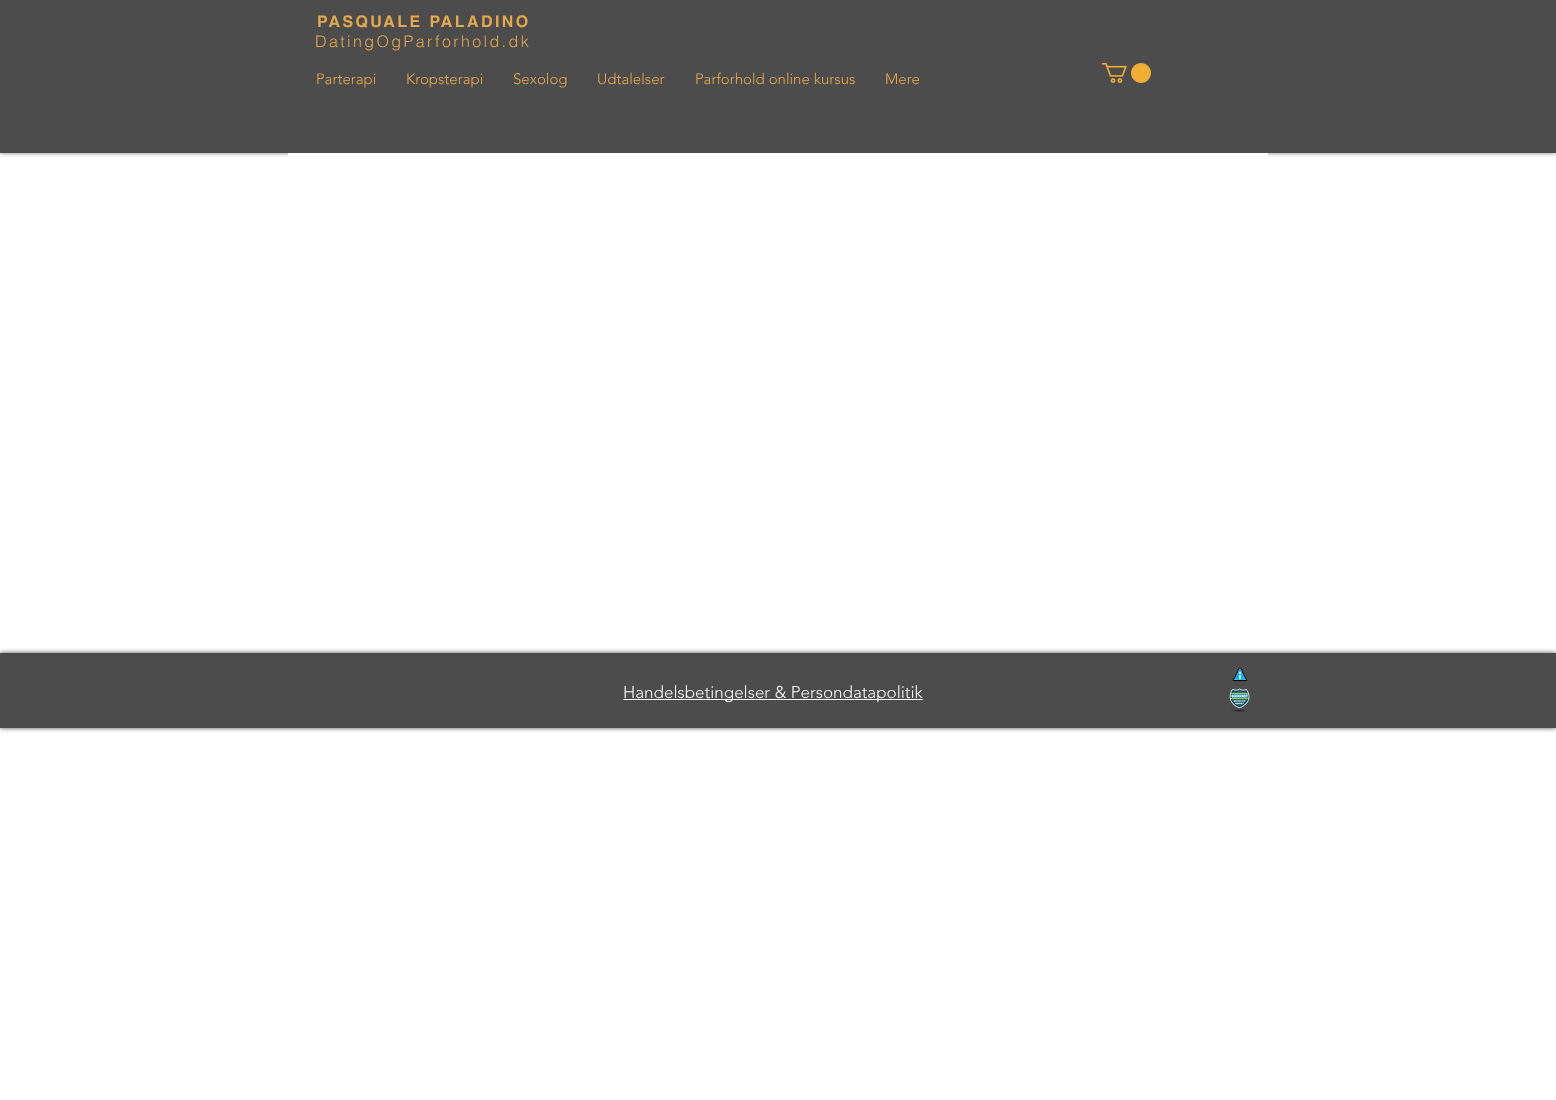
<svg xmlns="http://www.w3.org/2000/svg" width="1556" height="1100" viewBox="0 0 1556 1100">
  <defs>
    <filter id="blur1" x="-50%" y="-200%" width="200%" height="500%"><feGaussianBlur stdDeviation="2.5"/></filter>
  </defs>
  <rect width="100%" height="100%" fill="#ffffff"/>
  <rect x="0" y="0" width="1556" height="153" fill="#000000" fill-opacity="0.5" filter="url(#blur1)"/>
  <rect x="0" y="0" width="1556" height="153" fill="#4d4c4c"/>
  <text x="317" y="27" font-family="helvetica" font-size="16" font-weight="bold" letter-spacing="2.4" fill="#e4a84e">PASQUALE PALADINO</text>
  <text x="315" y="47" font-family="helvetica" font-size="16" font-weight="300" letter-spacing="2.4" fill="#e4a84e">DatingOgParforhold.dk</text>
  <text x="316" y="84" font-family="'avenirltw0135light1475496'" font-size="15" font-weight="300" fill="#e4a84e">Parterapi</text>
  <text x="406" y="84" font-family="'avenirltw0135light1475496'" font-size="15" font-weight="300" fill="#e4a84e">Kropsterapi</text>
  <text x="513" y="84" font-family="'avenirltw0135light1475496'" font-size="15" font-weight="300" fill="#e4a84e">Sexolog</text>
  <text x="597" y="84" font-family="'avenirltw0135light1475496'" font-size="15" font-weight="300" fill="#e4a84e">Udtalelser</text>
  <text x="695" y="84" font-family="'avenirltw0135light1475496'" font-size="15" font-weight="300" fill="#e4a84e">Parforhold online kursus</text>
  <text x="885" y="84" font-family="'avenirltw0135light1475496'" font-size="15" font-weight="300" fill="#e4a84e">Mere</text>
  <image x="1102" y="63" width="49" height="20" href="img1.png"/>
  <rect x="288" y="153" width="980" height="5" fill="#ffffff"/>
  <rect x="0" y="653" width="1556" height="75" fill="#000000" fill-opacity="0.7" filter="url(#blur1)"/>
  <rect x="0" y="653" width="1556" height="75" fill="#4d4c4c"/>
  <image x="1233" y="668" width="14" height="13" href="img2.png"/>
  <rect x="623" y="699" width="300" height="1" fill="#fafafa"/>
  <text x="623" y="698" font-family="'avenirltw0135light1475496'" font-size="17" font-weight="300" fill="#fafafa">Handelsbetingelser &amp; Persondatapolitik</text>
  <image x="1229" y="688" width="21" height="24" href="img3.png"/>
</svg>
